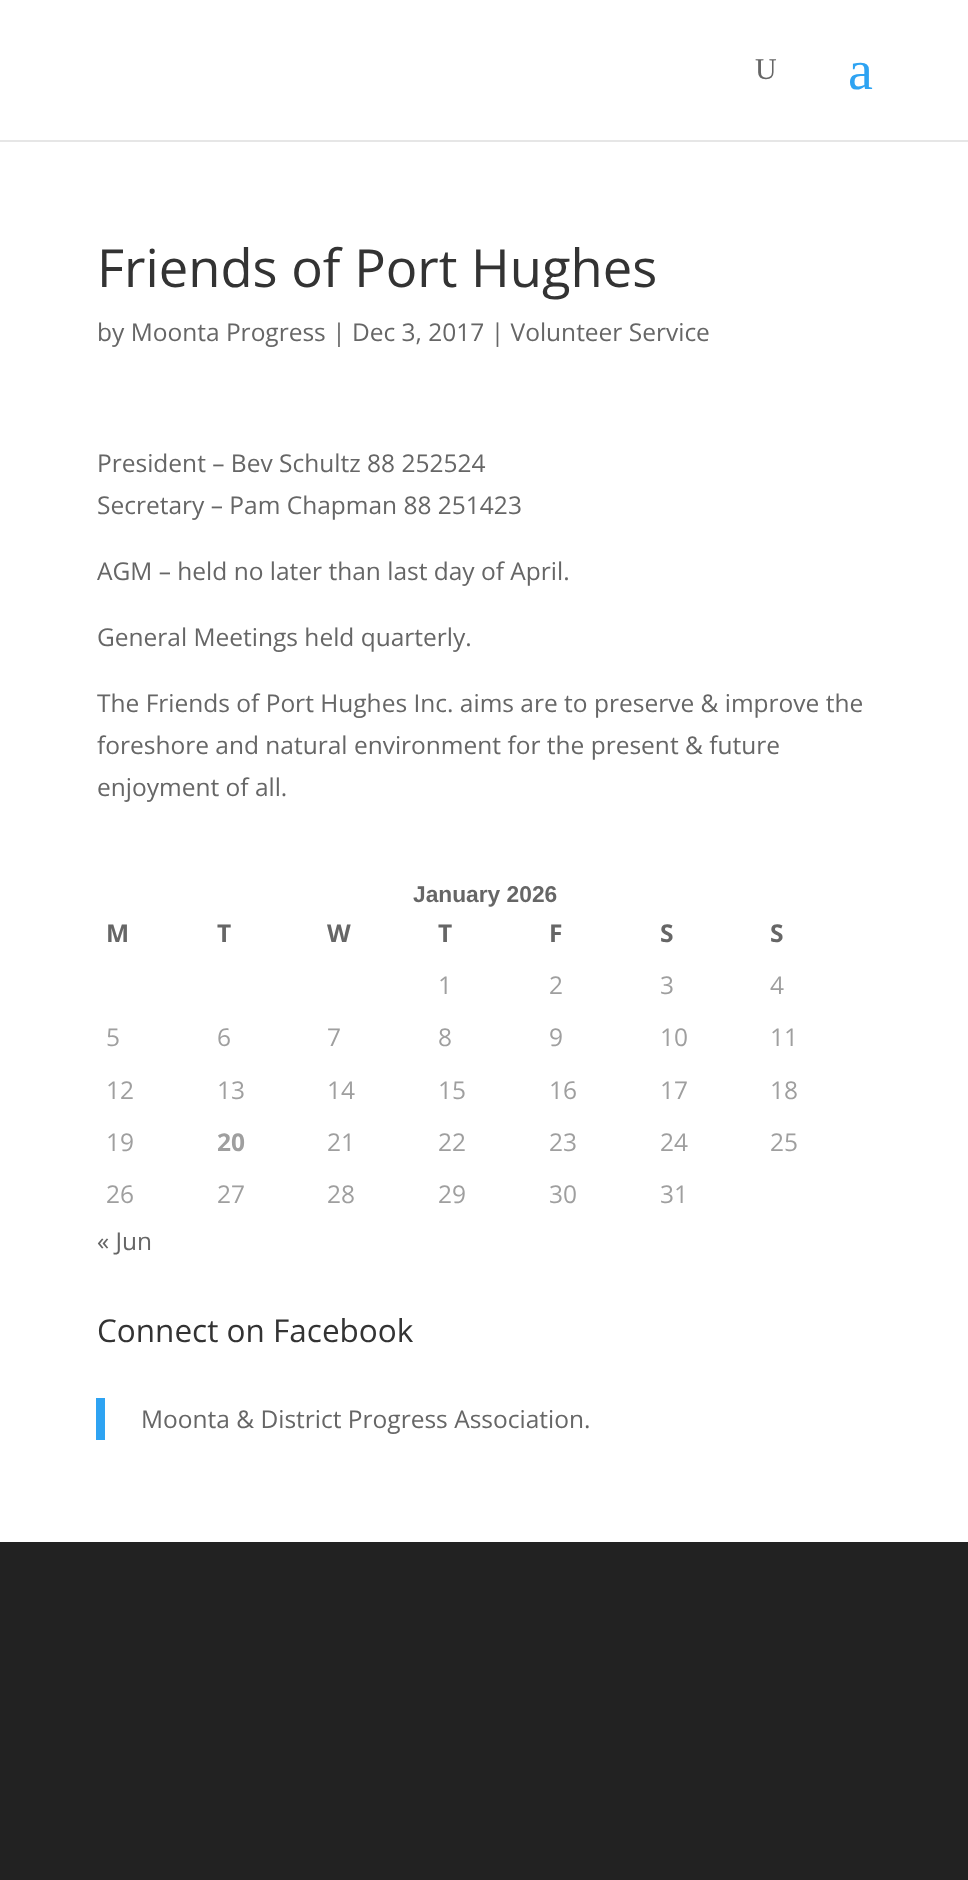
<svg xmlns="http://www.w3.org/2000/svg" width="968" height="1880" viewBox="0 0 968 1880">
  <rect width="100%" height="100%" fill="#ffffff"/>
  <path d="M0 140V142H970V2V140Z" fill="#e6e6e6"/>
  <text x="755" y="79" font-family="Liberation Serif" font-size="30" fill="#666666">U</text>
  <text x="848" y="89" font-family="Liberation Serif" font-size="56" fill="#2ea3f2">a</text>
  <text x="97" y="287" font-family="Open Sans" font-size="52.5" fill="#333333">Friends of Port Hughes</text>
  <text x="97" y="341" font-family="Open Sans" font-size="24.5" fill="#666666">by Moonta Progress | Dec 3, 2017 | Volunteer Service</text>
  <text x="97" y="472" font-family="Open Sans" font-size="24.5" fill="#666666">President – Bev Schultz 88 252524</text>
  <text x="97" y="514" font-family="Open Sans" font-size="24.5" fill="#666666">Secretary – Pam Chapman 88 251423</text>
  <text x="97" y="580" font-family="Open Sans" font-size="24.5" fill="#666666">AGM – held no later than last day of April.</text>
  <text x="97" y="646" font-family="Open Sans" font-size="24.5" fill="#666666">General Meetings held quarterly.</text>
  <text x="97" y="712" font-family="Open Sans" font-size="24.5" fill="#666666">The Friends of Port Hughes Inc. aims are to preserve &amp; improve the</text>
  <text x="97" y="754" font-family="Open Sans" font-size="24.5" fill="#666666">foreshore and natural environment for the present &amp; future</text>
  <text x="97" y="796" font-family="Open Sans" font-size="24.5" fill="#666666">enjoyment of all.</text>
  <text x="413" y="902" font-family="Liberation Sans" font-size="22.75" font-weight="bold" fill="#666666">January 2026</text>
  <text x="106" y="942" font-family="Open Sans" font-size="24.5" font-weight="bold" fill="#666666">M</text>
  <text x="217" y="942" font-family="Open Sans" font-size="24.5" font-weight="bold" fill="#666666">T</text>
  <text x="327" y="942" font-family="Open Sans" font-size="24.5" font-weight="bold" fill="#666666">W</text>
  <text x="438" y="942" font-family="Open Sans" font-size="24.5" font-weight="bold" fill="#666666">T</text>
  <text x="549" y="942" font-family="Open Sans" font-size="24.5" font-weight="bold" fill="#666666">F</text>
  <text x="660" y="942" font-family="Open Sans" font-size="24.5" font-weight="bold" fill="#666666">S</text>
  <text x="770" y="942" font-family="Open Sans" font-size="24.5" font-weight="bold" fill="#666666">S</text>
  <text x="438" y="994" font-family="Open Sans" font-size="24.5" fill="#9f9f9f">1</text>
  <text x="549" y="994" font-family="Open Sans" font-size="24.5" fill="#9f9f9f">2</text>
  <text x="660" y="994" font-family="Open Sans" font-size="24.5" fill="#9f9f9f">3</text>
  <text x="770" y="994" font-family="Open Sans" font-size="24.5" fill="#9f9f9f">4</text>
  <text x="106" y="1046" font-family="Open Sans" font-size="24.5" fill="#9f9f9f">5</text>
  <text x="217" y="1046" font-family="Open Sans" font-size="24.5" fill="#9f9f9f">6</text>
  <text x="327" y="1046" font-family="Open Sans" font-size="24.5" fill="#9f9f9f">7</text>
  <text x="438" y="1046" font-family="Open Sans" font-size="24.5" fill="#9f9f9f">8</text>
  <text x="549" y="1046" font-family="Open Sans" font-size="24.5" fill="#9f9f9f">9</text>
  <text x="660" y="1046" font-family="Open Sans" font-size="24.5" fill="#9f9f9f">10</text>
  <text x="770" y="1046" font-family="Open Sans" font-size="24.5" fill="#9f9f9f">11</text>
  <text x="106" y="1099" font-family="Open Sans" font-size="24.5" fill="#9f9f9f">12</text>
  <text x="217" y="1099" font-family="Open Sans" font-size="24.5" fill="#9f9f9f">13</text>
  <text x="327" y="1099" font-family="Open Sans" font-size="24.5" fill="#9f9f9f">14</text>
  <text x="438" y="1099" font-family="Open Sans" font-size="24.5" fill="#9f9f9f">15</text>
  <text x="549" y="1099" font-family="Open Sans" font-size="24.5" fill="#9f9f9f">16</text>
  <text x="660" y="1099" font-family="Open Sans" font-size="24.5" fill="#9f9f9f">17</text>
  <text x="770" y="1099" font-family="Open Sans" font-size="24.5" fill="#9f9f9f">18</text>
  <text x="106" y="1151" font-family="Open Sans" font-size="24.5" fill="#9f9f9f">19</text>
  <text x="217" y="1151" font-family="Open Sans" font-size="24.5" font-weight="bold" fill="#9f9f9f">20</text>
  <text x="327" y="1151" font-family="Open Sans" font-size="24.5" fill="#9f9f9f">21</text>
  <text x="438" y="1151" font-family="Open Sans" font-size="24.5" fill="#9f9f9f">22</text>
  <text x="549" y="1151" font-family="Open Sans" font-size="24.5" fill="#9f9f9f">23</text>
  <text x="660" y="1151" font-family="Open Sans" font-size="24.5" fill="#9f9f9f">24</text>
  <text x="770" y="1151" font-family="Open Sans" font-size="24.5" fill="#9f9f9f">25</text>
  <text x="106" y="1203" font-family="Open Sans" font-size="24.5" fill="#9f9f9f">26</text>
  <text x="217" y="1203" font-family="Open Sans" font-size="24.5" fill="#9f9f9f">27</text>
  <text x="327" y="1203" font-family="Open Sans" font-size="24.5" fill="#9f9f9f">28</text>
  <text x="438" y="1203" font-family="Open Sans" font-size="24.5" fill="#9f9f9f">29</text>
  <text x="549" y="1203" font-family="Open Sans" font-size="24.5" fill="#9f9f9f">30</text>
  <text x="660" y="1203" font-family="Open Sans" font-size="24.5" fill="#9f9f9f">31</text>
  <text x="97" y="1250" font-family="Open Sans" font-size="24.5" fill="#666666">« Jun</text>
  <text x="97" y="1342" font-family="Open Sans" font-size="31.5" fill="#333333">Connect on Facebook</text>
  <rect x="96" y="1398" width="9" height="42" fill="#2ea3f2"/>
  <text x="141" y="1428" font-family="Open Sans" font-size="24.5" fill="#666666">Moonta &amp; District Progress Association.</text>
  <rect x="0" y="1542" width="968" height="338" fill="#222222"/>
</svg>
